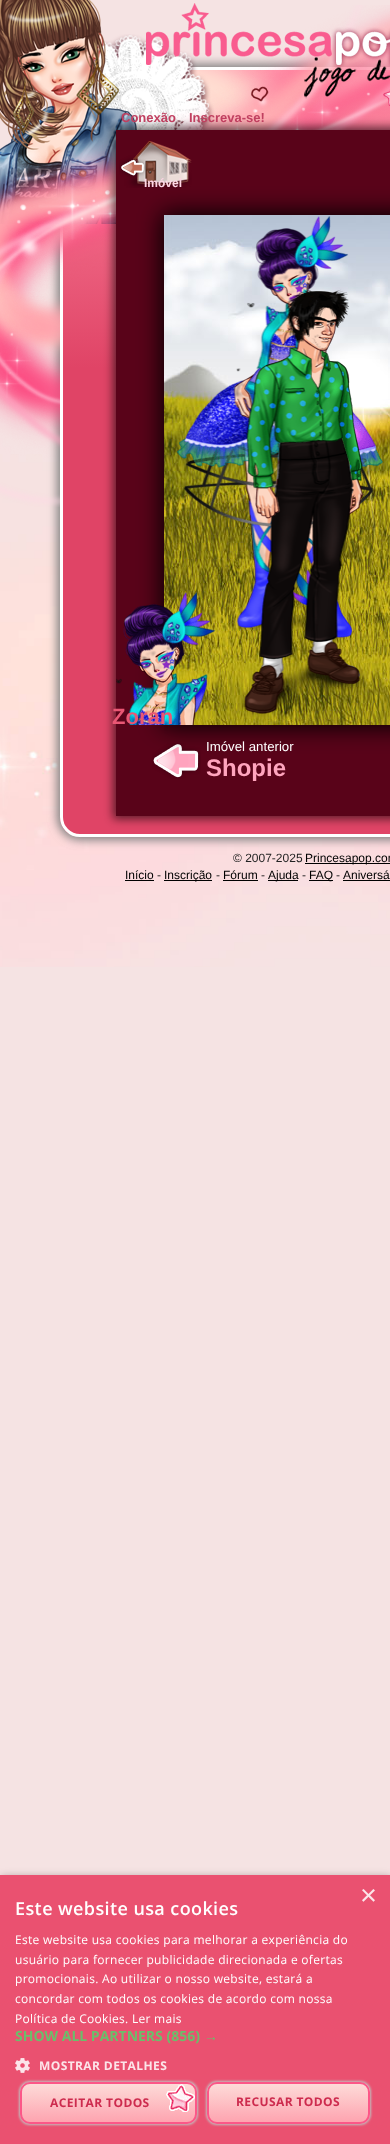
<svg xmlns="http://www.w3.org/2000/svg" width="390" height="2144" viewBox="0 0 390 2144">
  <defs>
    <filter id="blur1" x="-50%" y="-200%" width="200%" height="500%"><feGaussianBlur stdDeviation="5"/></filter>
    <clipPath id="clip1"><rect x="60" y="67" width="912" height="770" rx="20"/></clipPath>
    <linearGradient id="g1" gradientUnits="userSpaceOnUse" x1="63" y1="834" x2="63" y2="70"><stop offset="0.61" stop-color="#e04466"/><stop offset="1" stop-color="#ff8ca5"/></linearGradient>
    <filter id="blur2" x="-50%" y="-200%" width="200%" height="500%"><feGaussianBlur stdDeviation="12.5"/></filter>
    <filter id="blur3" x="-50%" y="-200%" width="200%" height="500%"><feGaussianBlur stdDeviation="4"/></filter>
    <filter id="blur4" x="-50%" y="-200%" width="200%" height="500%"><feGaussianBlur stdDeviation="1"/></filter>
    <clipPath id="clip2"><rect x="207" y="2082" width="163" height="42" rx="10"/></clipPath>
    <linearGradient id="g2" gradientUnits="userSpaceOnUse" x1="289" y1="2084" x2="289" y2="2122"><stop offset="0" stop-color="#fddbd8"/><stop offset="1" stop-color="#fea4b0"/></linearGradient>
  </defs>
  <rect width="100%" height="100%" fill="#f5e3e3"/>
  <image x="0" y="62" width="390" height="905" href="img1.png"/>
  <rect x="57" y="64" width="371" height="776" rx="23" fill="#808080" filter="url(#blur1)"/>
  <g clip-path="url(#clip1)">
    <rect x="60" y="70" width="330" height="764" fill="url(#g1)"/>
  </g>
  <rect x="61.5" y="68.5" width="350" height="767" rx="18.5" fill="none" stroke="#ffffff" stroke-width="3"/>
  <image x="87" y="34" width="303" height="96" href="img5.png"/>
  <image x="0" y="0" width="137" height="224" href="img3.png"/>
  <image x="0" y="5" width="390" height="502" href="img4.png"/>
  <image x="146" y="3" width="244" height="96" href="img2.png"/>
  <rect x="113" y="127" width="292" height="692" fill="#000000" fill-opacity="0.6" filter="url(#blur1)"/>
  <text x="121" y="122" font-family="Liberation Sans" font-size="13" font-weight="bold" fill="#c04060">Conexão</text>
  <text x="189" y="122" font-family="Liberation Sans" font-size="13" font-weight="bold" fill="#c04060">Inscreva-se!</text>
  <rect x="116" y="130" width="274" height="686" fill="#590319"/>
  <image x="119" y="141" width="73" height="47" href="img6.png"/>
  <image x="152" y="743" width="49" height="36" href="img36.png"/>
  <rect x="162" y="213" width="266" height="514" fill="#000000" filter="url(#blur2)"/>
  <text x="144" y="187" font-family="Liberation Sans" font-size="12" font-weight="bold" fill="#ffd6e5">Imóvel</text>
  <image x="164" y="215" width="226" height="510" href="img7.png"/>
  <image x="235" y="611" width="119" height="33" href="img26.png"/>
  <image x="233" y="265" width="110" height="352" href="img11.png"/>
  <image x="273" y="278" width="30" height="13" href="img17.png"/>
  <image x="283" y="285" width="10" height="21" href="img19.png"/>
  <image x="286" y="292" width="6" height="5" href="img20.png"/>
  <image x="273" y="277" width="35" height="18" href="img16.png"/>
  <image x="272" y="274" width="29" height="11" href="img14.png"/>
  <image x="270" y="274" width="38" height="18" href="img13.png"/>
  <image x="276" y="279" width="25" height="12" href="img18.png"/>
  <image x="269" y="275" width="38" height="17" href="img15.png"/>
  <image x="288" y="292" width="13" height="10" href="img21.png"/>
  <image x="215" y="269" width="127" height="347" href="img12.png"/>
  <image x="255" y="228" width="64" height="65" href="img8.png"/>
  <image x="256" y="235" width="39" height="36" href="img10.png"/>
  <image x="294" y="216" width="55" height="53" href="img9.png"/>
  <image x="245" y="331" width="54" height="69" href="img23.png"/>
  <image x="256" y="298" width="85" height="72" href="img22.png"/>
  <image x="236" y="500" width="117" height="138" href="img25.png"/>
  <image x="177" y="380" width="206" height="147" href="img24.png"/>
  <image x="239" y="661" width="130" height="56" href="img34.png"/>
  <image x="245" y="333" width="119" height="368" href="img28.png"/>
  <image x="273" y="450" width="80" height="45" href="img31.png"/>
  <image x="244" y="638" width="117" height="63" href="img32.png"/>
  <image x="243" y="641" width="117" height="73" href="img33.png"/>
  <image x="259" y="438" width="95" height="222" href="img30.png"/>
  <image x="245" y="347" width="118" height="142" href="img29.png"/>
  <image x="286" y="289" width="63" height="62" href="img27.png"/>
  <rect x="165" y="664" width="2" height="62" fill="#000000" filter="url(#blur3)"/>
  <image x="116" y="592" width="100" height="133" href="img35.png"/>
  <text x="112" y="724" font-family="Liberation Sans" font-size="22" font-weight="bold" fill="#e95774">Zoran</text>
  <text x="206" y="751" font-family="Liberation Sans" font-size="13.25" fill="#ffffff">Imóvel anterior</text>
  <text x="206" y="776" font-family="Liberation Sans" font-size="24" font-weight="bold" fill="#ffa5be">Shopie</text>
  <text x="233" y="862" font-family="Liberation Sans" font-size="12" fill="#222222">© 2007-2025</text>
  <rect x="305" y="863" width="85" height="1" fill="#000000"/>
  <text x="305" y="862" font-family="Liberation Sans" font-size="12" fill="#000000">Princesapop.com</text>
  <text x="125" y="879" font-family="Liberation Sans" font-size="12" fill="#000000">Início</text>
  <rect x="125" y="880" width="29" height="1" fill="#000000"/>
  <text x="157" y="879" font-family="Liberation Sans" font-size="12" fill="#222222">-</text>
  <rect x="164" y="880" width="48" height="1" fill="#000000"/>
  <text x="164" y="879" font-family="Liberation Sans" font-size="12" fill="#000000">Inscrição</text>
  <text x="216" y="879" font-family="Liberation Sans" font-size="12" fill="#222222">-</text>
  <text x="223" y="879" font-family="Liberation Sans" font-size="12" fill="#000000">Fórum</text>
  <rect x="223" y="880" width="35" height="1" fill="#000000"/>
  <text x="261" y="879" font-family="Liberation Sans" font-size="12" fill="#222222">-</text>
  <rect x="268" y="880" width="30" height="1" fill="#000000"/>
  <text x="268" y="879" font-family="Liberation Sans" font-size="12" fill="#000000">Ajuda</text>
  <text x="302" y="879" font-family="Liberation Sans" font-size="12" fill="#222222">-</text>
  <rect x="309" y="880" width="24" height="1" fill="#000000"/>
  <text x="309" y="879" font-family="Liberation Sans" font-size="12" fill="#000000">FAQ</text>
  <text x="336" y="879" font-family="Liberation Sans" font-size="12" fill="#222222">-</text>
  <text x="343" y="879" font-family="Liberation Sans" font-size="12" fill="#000000">Aniversá</text>
  <rect x="343" y="880" width="47" height="1" fill="#000000"/>
  <rect x="1" y="1877" width="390" height="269" fill="#000000" fill-opacity="0.35" filter="url(#blur3)"/>
  <rect x="0" y="1875" width="390" height="269" fill="#ea5170"/>
  <text x="360" y="1905" font-family="Liberation Sans" font-size="29" fill="#fce5ea">×</text>
  <text x="15" y="1915" font-family="Open Sans" font-size="18" font-weight="600" letter-spacing="0.4" fill="#ffffff">Este website usa cookies</text>
  <text x="15" y="1944" font-family="Open Sans" font-size="12" letter-spacing="0.3" fill="#ffffff">Este website usa cookies para melhorar a experiência do</text>
  <text x="15" y="1964" font-family="Open Sans" font-size="12" letter-spacing="0.3" fill="#ffffff">usuário para fornecer publicidade direcionada e ofertas</text>
  <text x="15" y="1983" font-family="Open Sans" font-size="12" letter-spacing="0.3" fill="#ffffff">promocionais. Ao utilizar o nosso website, estará a</text>
  <text x="15" y="2003" font-family="Open Sans" font-size="12" letter-spacing="0.3" fill="#ffffff">concordar com todos os cookies de acordo com nossa</text>
  <text x="15" y="2023" font-family="Open Sans" font-size="12" letter-spacing="0.3" fill="#ffffff">Política de Cookies. Ler mais</text>
  <text x="15" y="2041" font-family="Open Sans" font-size="14" font-weight="bold" fill="#6bbe6b">SHOW ALL PARTNERS (856)</text>
  <text x="204" y="2041" font-family="Liberation Sans" font-size="14" font-weight="bold" fill="#6bbe6b">→</text>
  <image x="15" y="2058" width="15" height="15" href="img37.png"/>
  <text x="39" y="2070" font-family="Open Sans" font-size="12" font-weight="bold" letter-spacing="0.4" fill="#fce5ea">MOSTRAR DETALHES</text>
  <rect x="19" y="2081" width="179" height="44" rx="11" fill="#bfbfbf" filter="url(#blur4)"/>
  <image x="22" y="2084" width="173" height="38" href="img38.png"/>
  <rect x="21" y="2083" width="175" height="40" rx="9" fill="none" stroke="#fc5788" stroke-width="2"/>
  <text x="50" y="2107" font-family="Open Sans" font-size="12" font-weight="bold" letter-spacing="0.4" fill="#cd2b4e">ACEITAR TODOS</text>
  <rect x="206" y="2081" width="165" height="44" rx="11" fill="#bfbfbf" filter="url(#blur4)"/>
  <g clip-path="url(#clip2)">
    <rect x="207" y="2084" width="163" height="38" fill="url(#g2)"/>
  </g>
  <rect x="208" y="2083" width="161" height="40" rx="9" fill="none" stroke="#fc5788" stroke-width="2"/>
  <text x="236" y="2106" font-family="Open Sans" font-size="12" font-weight="bold" letter-spacing="0.4" fill="#cd2b4e">RECUSAR TODOS</text>
</svg>
